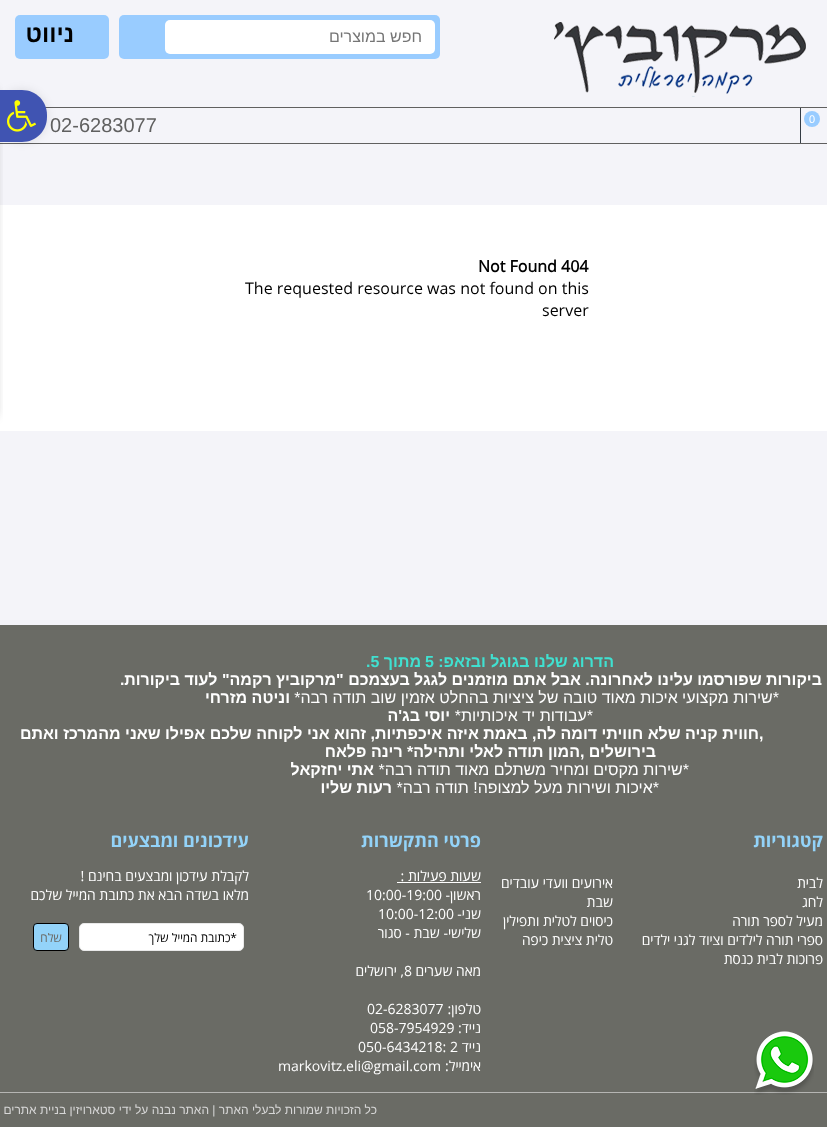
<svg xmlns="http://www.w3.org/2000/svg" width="827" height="1127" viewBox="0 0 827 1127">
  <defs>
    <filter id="blur1" x="-50%" y="-200%" width="200%" height="500%"><feGaussianBlur stdDeviation="5"/></filter>
  </defs>
  <rect width="100%" height="100%" fill="#f4f4f9"/>
  <image x="554" y="22" width="252" height="75" href="img1.png"/>
  <rect x="119" y="15" width="321" height="44" rx="5" fill="#99ccff"/>
  <rect x="165" y="20" width="270" height="34" rx="5" fill="#ffffff"/>
  <text x="422" y="42" font-family="Liberation Sans" font-size="16" direction="rtl" fill="#757575">חפש במוצרים</text>
  <rect x="15" y="15" width="94" height="44" rx="5" fill="#99ccff"/>
  <text x="74" y="42" font-family="Liberation Sans" font-size="24" font-weight="bold" direction="rtl" fill="#000000">ניווט</text>
  <rect x="45" y="107" width="782" height="1" fill="#606060"/>
  <rect x="0" y="143" width="827" height="1" fill="#606060"/>
  <rect x="800" y="108" width="1" height="35" fill="#343c45"/>
  <circle cx="812" cy="119" r="8" fill="#99ccff"/>
  <text x="809" y="123" font-family="Liberation Sans" font-size="11" fill="#ffffff">0</text>
  <text x="50" y="132" font-family="Liberation Sans" font-size="20" fill="#606060">02-6283077</text>
  <rect x="0" y="205" width="827" height="226" fill="#ffffff"/>
  <text x="478" y="272" font-family="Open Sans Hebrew" font-size="16" font-weight="bold" fill="#000000">Not Found 404</text>
  <text x="245" y="294" font-family="Open Sans Hebrew" font-size="16" fill="#000000">The requested resource was not found on this</text>
  <text x="542" y="316" font-family="Open Sans Hebrew" font-size="16" fill="#000000">server</text>
  <rect x="-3" y="90" width="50" height="52" rx="25" fill="#000000" fill-opacity="0.1" filter="url(#blur1)"/>
  <rect x="-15" y="90" width="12" height="326" fill="#000000" fill-opacity="0.2" filter="url(#blur1)"/>
  <path d="M-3 90H22C36 90 47 101 47 115V117C47 131 36 142 22 142H-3Z" fill="#4054b2"/>
  <image x="7" y="100" width="29" height="32" href="img2.png"/>
  <rect x="0" y="625" width="827" height="502" fill="#6a6b65"/>
  <text x="614" y="667" font-family="Liberation Sans" font-size="16" font-weight="bold" direction="rtl" fill="#40e0d0">הדרוג שלנו בגוגל ובזאפ:</text>
  <text x="425" y="667" font-family="Liberation Sans" font-size="16" font-weight="bold" fill="#40e0d0">5</text>
  <text x="421" y="667" font-family="Liberation Sans" font-size="16" font-weight="bold" direction="rtl" fill="#40e0d0">מתוך</text>
  <text x="366" y="667" font-family="Liberation Sans" font-size="16" font-weight="bold" fill="#40e0d0">.5</text>
  <text x="860" y="685" font-family="Liberation Sans" font-size="16" font-weight="bold" direction="rtl" fill="#ffffff">להלן ביקורות שפורסמו עלינו לאחרונה. אבל אתם מוזמנים לגגל בעצמכם "מרקוביץ רקמה" לעוד ביקורות</text>
  <text x="120" y="685" font-family="Liberation Sans" font-size="16" font-weight="bold" fill="#ffffff">.</text>
  <text x="779" y="703" font-family="Liberation Sans" font-size="16" direction="rtl" fill="#ffffff">*שירות מקצועי איכות מאוד טובה של ציציות בהחלט אזמין שוב תודה רבה*</text>
  <text x="290" y="703" font-family="Liberation Sans" font-size="16" font-weight="bold" direction="rtl" fill="#ffffff">וניטה מזרחי</text>
  <text x="593" y="721" font-family="Liberation Sans" font-size="16" direction="rtl" fill="#ffffff">*עבודות יד איכותיות*</text>
  <text x="450" y="721" font-family="Liberation Sans" font-size="16" font-weight="bold" direction="rtl" fill="#ffffff">יוסי בג'ה</text>
  <text x="759" y="739" font-family="Liberation Sans" font-size="16" font-weight="bold" fill="#ffffff">,</text>
  <text x="759" y="739" font-family="Liberation Sans" font-size="16" font-weight="bold" direction="rtl" fill="#ffffff">חווית קניה שלא חוויתי דומה לה, באמת איזה איכפתיות, זהוא אני לקוחה שלכם אפילו שאני מהמרכז ואתם</text>
  <text x="656" y="757" font-family="Liberation Sans" font-size="16" font-weight="bold" direction="rtl" fill="#ffffff">בירושלים</text>
  <text x="580" y="757" font-family="Liberation Sans" font-size="16" font-weight="bold" fill="#ffffff">,</text>
  <text x="580" y="757" font-family="Liberation Sans" font-size="16" font-weight="bold" direction="rtl" fill="#ffffff">המון תודה לאלי ותהילה* רינה פלאח</text>
  <text x="689" y="775" font-family="Liberation Sans" font-size="16" direction="rtl" fill="#ffffff">*שירות מקסים ומחיר משתלם מאוד תודה רבה*</text>
  <text x="374" y="775" font-family="Liberation Sans" font-size="16" font-weight="bold" direction="rtl" fill="#ffffff">אתי יחזקאל</text>
  <text x="659" y="793" font-family="Liberation Sans" font-size="16" direction="rtl" fill="#ffffff">*איכות ושירות מעל למצופה! תודה רבה*</text>
  <text x="392" y="793" font-family="Liberation Sans" font-size="16" font-weight="bold" direction="rtl" fill="#ffffff">רעות שליו</text>
  <text x="823" y="847" font-family="'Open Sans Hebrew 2'" font-size="18" font-weight="bold" direction="rtl" fill="#93d3f9">קטגוריות</text>
  <text x="823" y="888" font-family="Open Sans Hebrew" font-size="14" direction="rtl" fill="#ffffff">לבית</text>
  <text x="823" y="907" font-family="Open Sans Hebrew" font-size="14" direction="rtl" fill="#ffffff">לחג</text>
  <text x="823" y="926" font-family="Open Sans Hebrew" font-size="14" direction="rtl" fill="#ffffff">מעיל לספר תורה</text>
  <text x="823" y="945" font-family="Open Sans Hebrew" font-size="14" direction="rtl" fill="#ffffff">ספרי תורה לילדים וציוד לגני ילדים</text>
  <text x="823" y="964" font-family="Open Sans Hebrew" font-size="14" direction="rtl" fill="#ffffff">פרוכות לבית כנסת</text>
  <text x="613" y="888" font-family="Open Sans Hebrew" font-size="14" direction="rtl" fill="#ffffff">אירועים וועדי עובדים</text>
  <text x="613" y="907" font-family="Open Sans Hebrew" font-size="14" direction="rtl" fill="#ffffff">שבת</text>
  <text x="613" y="926" font-family="Open Sans Hebrew" font-size="14" direction="rtl" fill="#ffffff">כיסוים לטלית ותפילין</text>
  <text x="613" y="945" font-family="Open Sans Hebrew" font-size="14" direction="rtl" fill="#ffffff">טלית ציצית כיפה</text>
  <text x="481" y="847" font-family="'Open Sans Hebrew 2'" font-size="18" font-weight="bold" direction="rtl" fill="#93d3f9">פרטי התקשרות</text>
  <text x="481" y="881" font-family="Open Sans Hebrew" font-size="14" direction="rtl" fill="#ffffff">שעות פעילות :</text>
  <rect x="397" y="882" width="84" height="1" fill="#ffffff"/>
  <text x="481" y="900" font-family="Open Sans Hebrew" font-size="14" direction="rtl" fill="#ffffff">ראשון-</text>
  <text x="366" y="900" font-family="Open Sans Hebrew" font-size="14" fill="#ffffff">10:00-19:00</text>
  <text x="481" y="919" font-family="Open Sans Hebrew" font-size="14" direction="rtl" fill="#ffffff">שני-</text>
  <text x="378" y="919" font-family="Open Sans Hebrew" font-size="14" fill="#ffffff">10:00-12:00</text>
  <text x="481" y="938" font-family="Open Sans Hebrew" font-size="14" direction="rtl" fill="#ffffff">שלישי- שבת - סגור</text>
  <text x="481" y="976" font-family="Open Sans Hebrew" font-size="14" direction="rtl" fill="#ffffff">מאה שערים</text>
  <text x="404" y="976" font-family="Open Sans Hebrew" font-size="14" fill="#ffffff">8</text>
  <text x="404" y="976" font-family="Open Sans Hebrew" font-size="14" direction="rtl" fill="#ffffff">, ירושלים</text>
  <text x="481" y="1014" font-family="Open Sans Hebrew" font-size="14" direction="rtl" fill="#ffffff">טלפון:</text>
  <text x="367" y="1014" font-family="Open Sans Hebrew" font-size="14" fill="#ffffff">02-6283077</text>
  <text x="481" y="1033" font-family="Open Sans Hebrew" font-size="14" direction="rtl" fill="#ffffff">נייד:</text>
  <text x="370" y="1033" font-family="Open Sans Hebrew" font-size="14" fill="#ffffff">058-7954929</text>
  <text x="481" y="1052" font-family="Open Sans Hebrew" font-size="14" direction="rtl" fill="#ffffff">נייד</text>
  <text x="358" y="1052" font-family="Open Sans Hebrew" font-size="14" fill="#ffffff">050-6434218: 2</text>
  <text x="481" y="1071" font-family="Open Sans Hebrew" font-size="14" direction="rtl" fill="#ffffff">אימייל:</text>
  <text x="278" y="1071" font-family="Open Sans Hebrew" font-size="14" fill="#ffffff">markovitz.eli@gmail.com</text>
  <text x="249" y="847" font-family="'Open Sans Hebrew 2'" font-size="18" font-weight="bold" direction="rtl" fill="#93d3f9">עידכונים ומבצעים</text>
  <text x="249" y="881" font-family="Open Sans Hebrew" font-size="14" direction="rtl" fill="#ffffff">לקבלת עידכון ומבצעים בחינם !</text>
  <text x="249" y="900" font-family="Open Sans Hebrew" font-size="14" direction="rtl" fill="#ffffff">מלאו בשדה הבא את כתובת המייל שלכם</text>
  <image x="33" y="923" width="211" height="28" href="img3.png"/>
  <rect x="0" y="1092" width="827" height="1" fill="#b5b5b3"/>
  <text x="377" y="1114" font-family="Liberation Sans" font-size="12" direction="rtl" fill="#d7d7d7">כל הזכויות שמורות לבעלי האתר | האתר נבנה על ידי סטארויזין בניית אתרים</text>
  <image x="754" y="1031" width="60" height="64" href="img4.png"/>
</svg>
